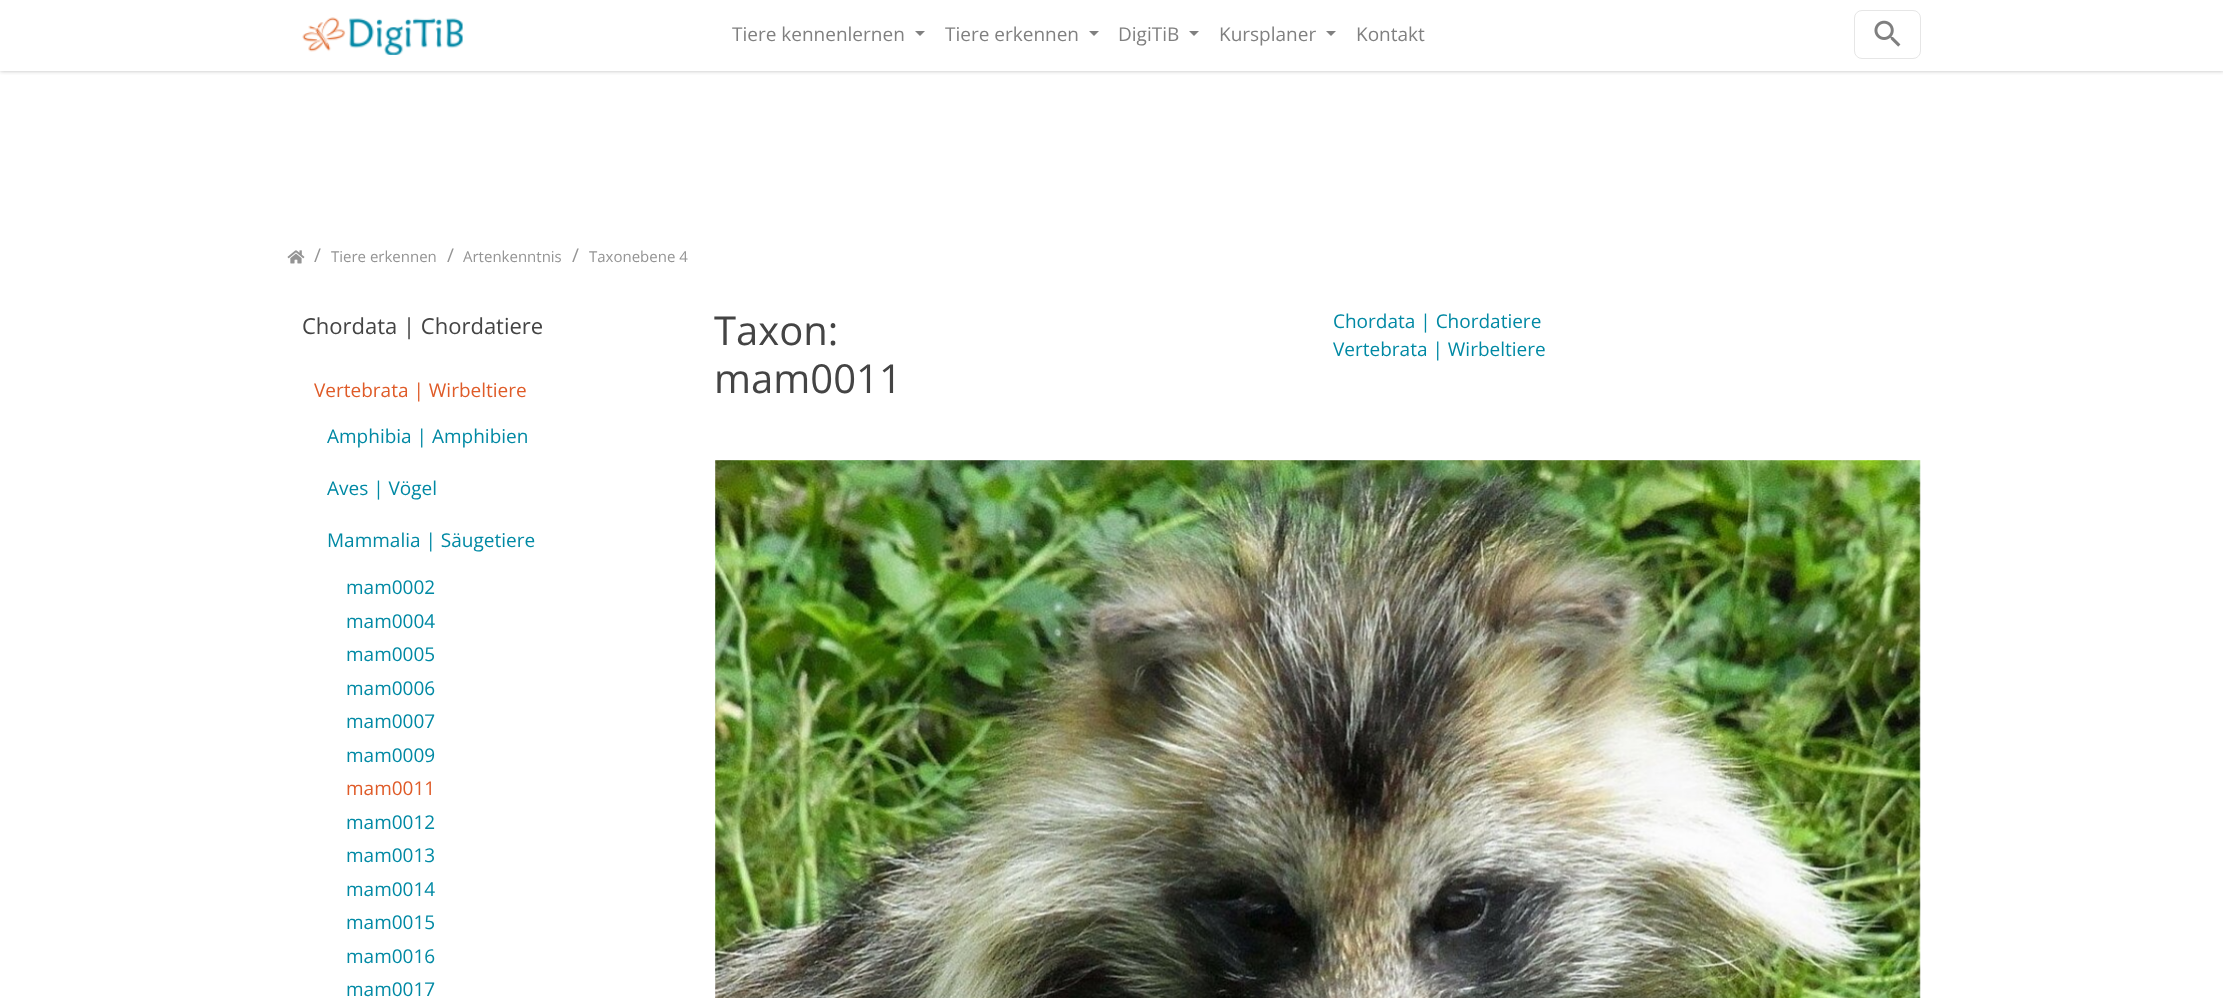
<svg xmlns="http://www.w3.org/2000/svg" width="2223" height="998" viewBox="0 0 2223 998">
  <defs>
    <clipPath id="clip1"><rect x="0" y="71" width="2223" height="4"/></clipPath>
    <filter id="blur1" x="-50%" y="-200%" width="200%" height="500%"><feGaussianBlur stdDeviation="2"/></filter>
  </defs>
  <rect width="100%" height="100%" fill="#ffffff"/>
  <g clip-path="url(#clip1)">
    <rect x="0" y="0" width="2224" height="71" fill="#bbbbbb" filter="url(#blur1)"/>
  </g>
  <image x="302" y="17" width="161" height="38" href="img1.png"/>
  <text x="732" y="41" font-family="Open Sans" font-size="19" fill="#808080">Tiere kennenlernen</text>
  <path d="M915 31H925L920 36Z" fill="#808080"/>
  <text x="945" y="41" font-family="Open Sans" font-size="19" fill="#808080">Tiere erkennen</text>
  <path d="M1089 31H1099L1094 36Z" fill="#808080"/>
  <text x="1118" y="41" font-family="Open Sans" font-size="19" fill="#808080">DigiTiB</text>
  <path d="M1189 31H1199L1194 36Z" fill="#808080"/>
  <text x="1219" y="41" font-family="Open Sans" font-size="19" fill="#808080">Kursplaner</text>
  <path d="M1326 31H1336L1331 36Z" fill="#808080"/>
  <text x="1356" y="41" font-family="Open Sans" font-size="19" fill="#808080">Kontakt</text>
  <rect x="1854.5" y="10.5" width="66" height="48" rx="7.5" fill="none" stroke="#e6e6e6"/>
  <image x="1874" y="20" width="27" height="27" href="img2.png"/>
  <image x="287" y="250" width="18" height="14" href="img3.png"/>
  <text x="314" y="262" font-family="Open Sans" font-size="19" fill="#949494">/</text>
  <text x="331" y="262" font-family="Open Sans" font-size="15" fill="#949494">Tiere erkennen</text>
  <text x="447" y="262" font-family="Open Sans" font-size="19" fill="#949494">/</text>
  <text x="463" y="262" font-family="Open Sans" font-size="15" fill="#949494">Artenkenntnis</text>
  <text x="572" y="262" font-family="Open Sans" font-size="19" fill="#949494">/</text>
  <text x="589" y="262" font-family="Open Sans" font-size="15" fill="#949494">Taxonebene 4</text>
  <text x="302" y="334" font-family="Open Sans" font-size="22" fill="#444444">Chordata | Chordatiere</text>
  <text x="314" y="397" font-family="Open Sans" font-size="19" fill="#df5b28">Vertebrata | Wirbeltiere</text>
  <text x="327" y="443" font-family="Open Sans" font-size="19" fill="#0089a4">Amphibia | Amphibien</text>
  <text x="327" y="495" font-family="Open Sans" font-size="19" fill="#0089a4">Aves | Vögel</text>
  <text x="327" y="547" font-family="Open Sans" font-size="19" fill="#0089a4">Mammalia | Säugetiere</text>
  <text x="346" y="594" font-family="Open Sans" font-size="19" fill="#0089a4">mam0002</text>
  <text x="346" y="628" font-family="Open Sans" font-size="19" fill="#0089a4">mam0004</text>
  <text x="346" y="661" font-family="Open Sans" font-size="19" fill="#0089a4">mam0005</text>
  <text x="346" y="695" font-family="Open Sans" font-size="19" fill="#0089a4">mam0006</text>
  <text x="346" y="728" font-family="Open Sans" font-size="19" fill="#0089a4">mam0007</text>
  <text x="346" y="762" font-family="Open Sans" font-size="19" fill="#0089a4">mam0009</text>
  <text x="346" y="795" font-family="Open Sans" font-size="19" fill="#df5b28">mam0011</text>
  <text x="346" y="829" font-family="Open Sans" font-size="19" fill="#0089a4">mam0012</text>
  <text x="346" y="862" font-family="Open Sans" font-size="19" fill="#0089a4">mam0013</text>
  <text x="346" y="896" font-family="Open Sans" font-size="19" fill="#0089a4">mam0014</text>
  <text x="346" y="929" font-family="Open Sans" font-size="19" fill="#0089a4">mam0015</text>
  <text x="346" y="963" font-family="Open Sans" font-size="19" fill="#0089a4">mam0016</text>
  <text x="346" y="996" font-family="Open Sans" font-size="19" fill="#0089a4">mam0017</text>
  <text x="714" y="345" font-family="Open Sans" font-size="40" fill="#444444">Taxon:</text>
  <text x="714" y="393" font-family="Open Sans" font-size="40" fill="#444444">mam0011</text>
  <text x="1333" y="328" font-family="Open Sans" font-size="19" fill="#0089a4">Chordata | Chordatiere</text>
  <text x="1333" y="356" font-family="Open Sans" font-size="19" fill="#0089a4">Vertebrata | Wirbeltiere</text>
  <image x="715" y="460" width="1206" height="538" href="img4.png"/>
</svg>
